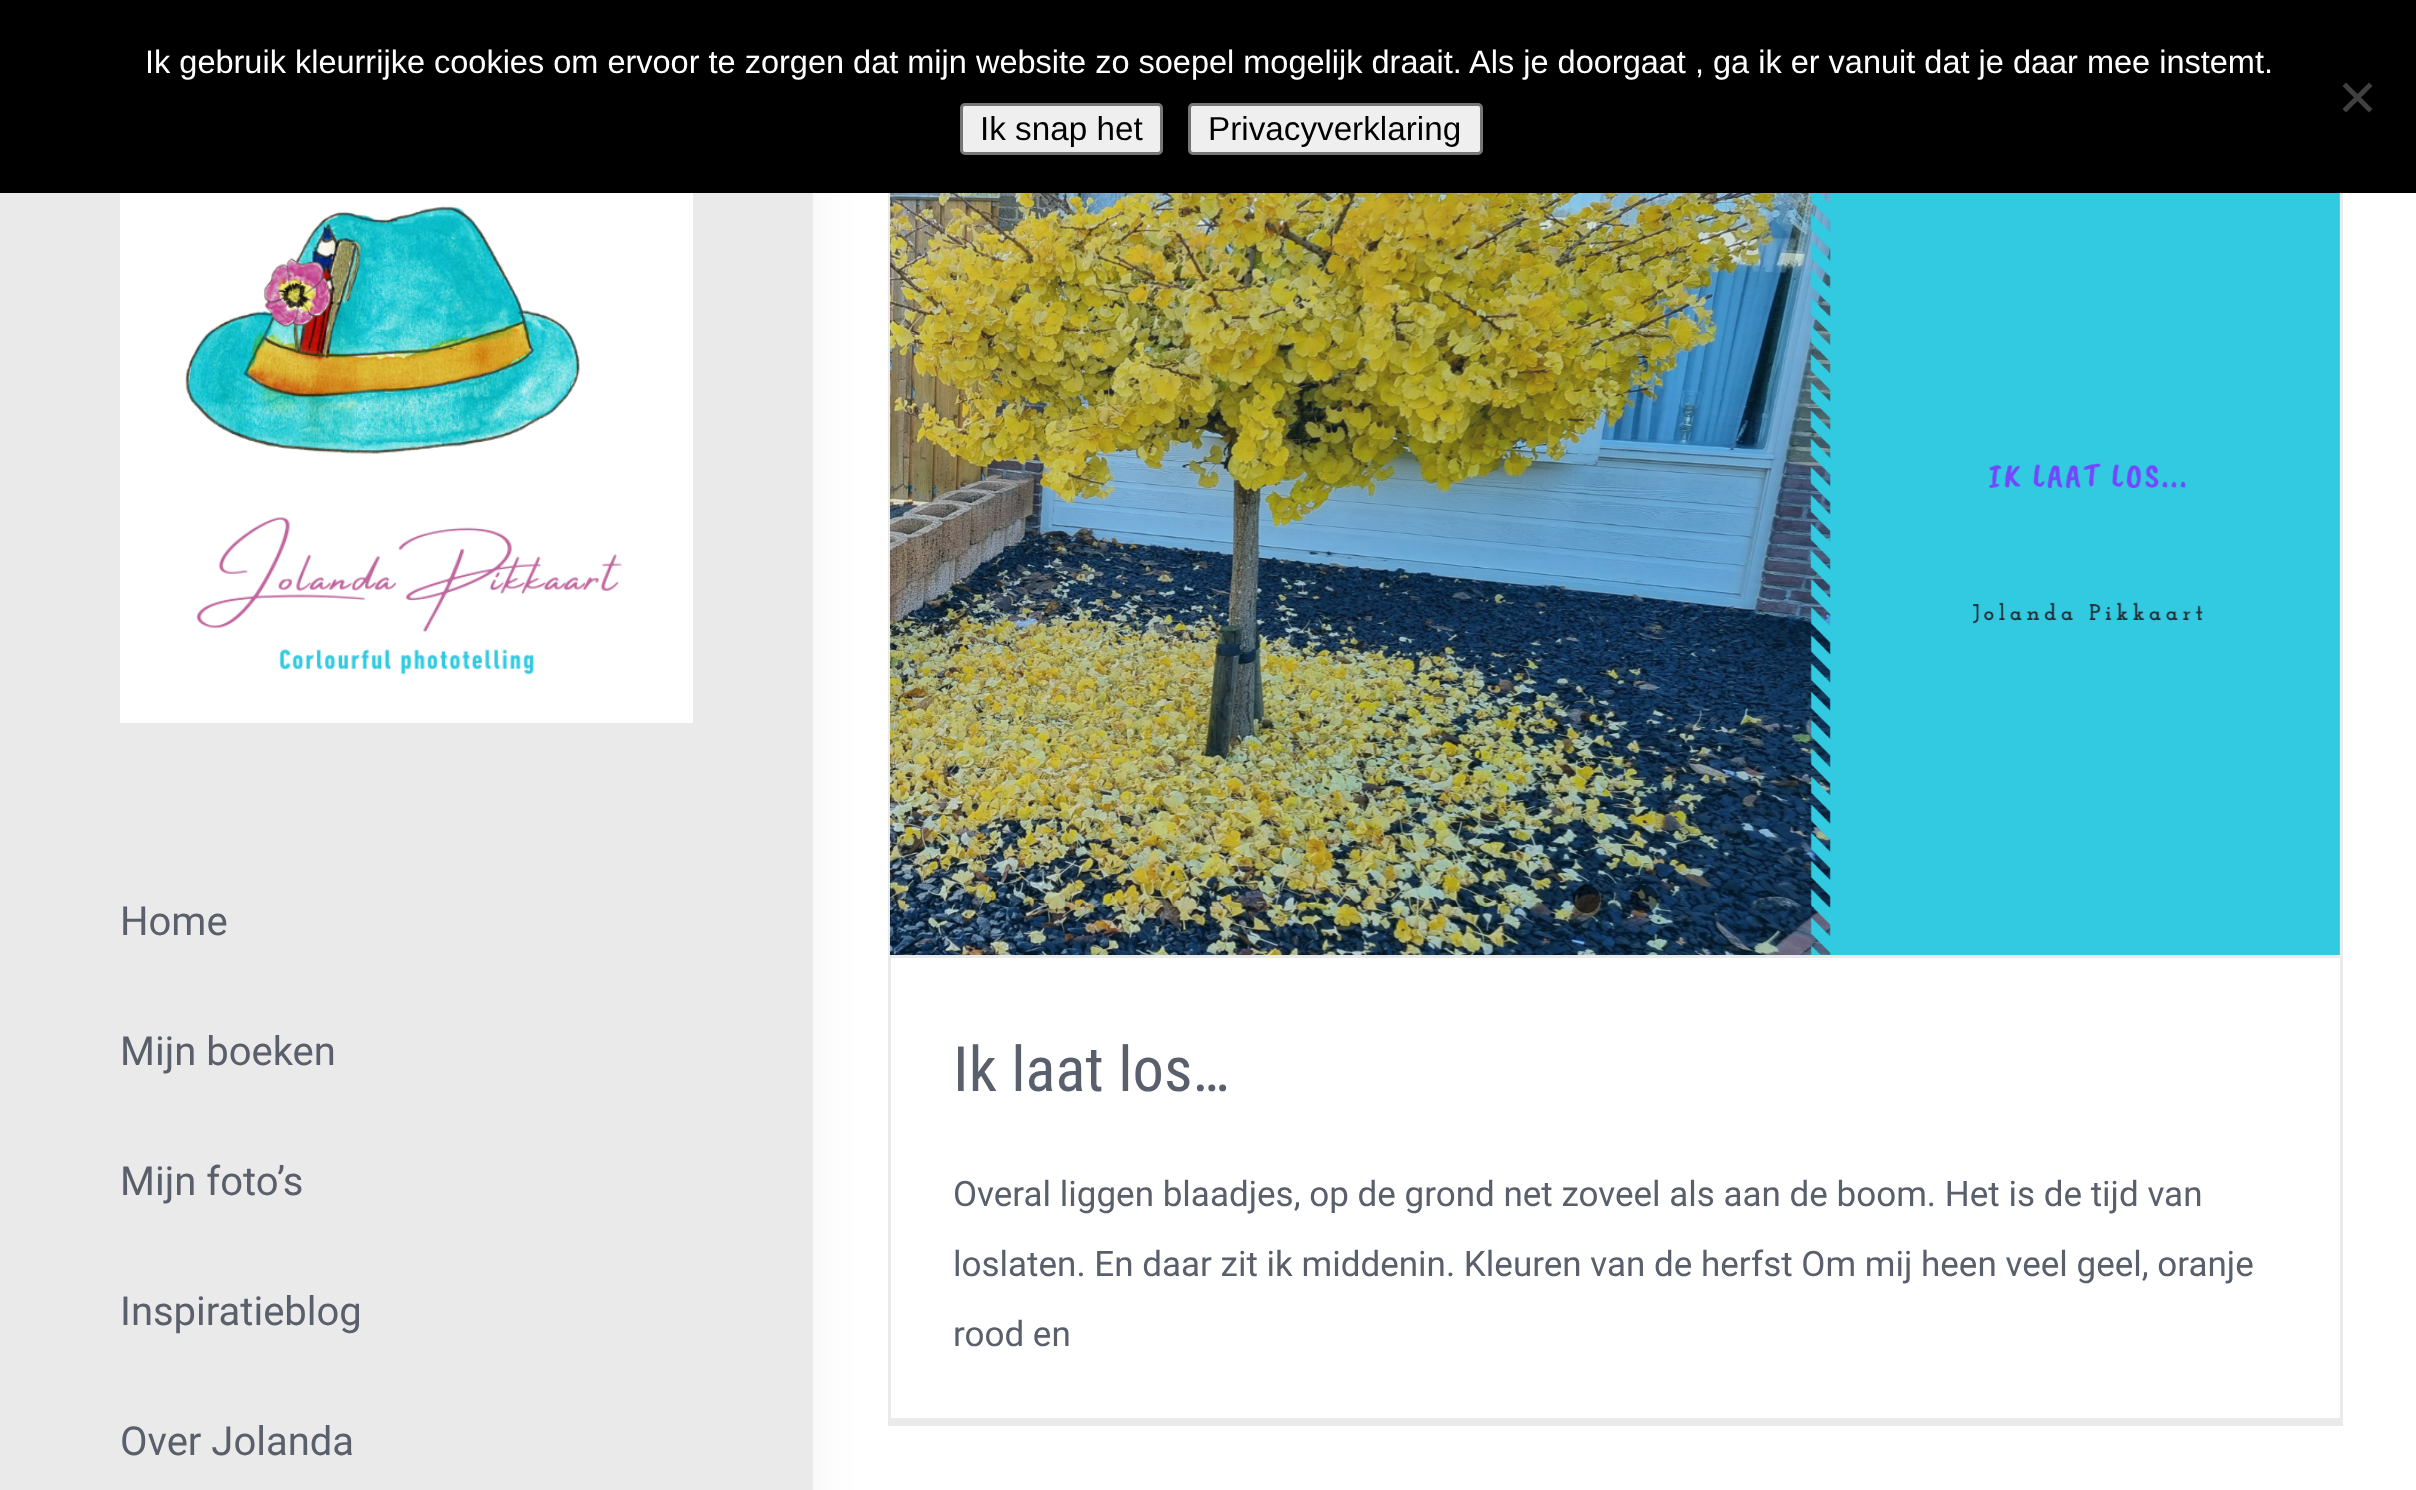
<svg xmlns="http://www.w3.org/2000/svg" width="2416" height="1490" viewBox="0 0 2416 1490">
  <defs>
    <filter id="blur1" x="-50%" y="-200%" width="200%" height="500%"><feGaussianBlur stdDeviation="27.5"/></filter>
  </defs>
  <rect width="100%" height="100%" fill="#ffffff"/>
  <rect x="50" y="30" width="753" height="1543" fill="#000000" fill-opacity="0.07" filter="url(#blur1)"/>
  <rect x="0" y="0" width="2416" height="193" fill="#000000"/>
  <text x="145" y="73" font-family="Liberation Sans" font-size="32.5" fill="#ffffff">Ik gebruik kleurrijke cookies om ervoor te zorgen dat mijn website zo soepel mogelijk draait. Als je doorgaat , ga ik er vanuit dat je daar mee instemt.</text>
  <path d="M2369 82.5L2372.5 86L2346 112.5L2342.5 109Z" fill="#404040"/>
  <path d="M2342.5 86L2346 82.5L2372.5 109L2369 112.5Z" fill="#404040"/>
  <rect x="961.5" y="104.5" width="200" height="49" rx="3.5" fill="#efefef" stroke="#767676" stroke-width="3"/>
  <text x="980" y="140" font-family="Liberation Sans" font-size="33.25" fill="#000000">Ik snap het</text>
  <rect x="1189.5" y="104.5" width="292" height="49" rx="3.5" fill="#efefef" stroke="#767676" stroke-width="3"/>
  <text x="1208" y="140" font-family="Liberation Sans" font-size="33.25" fill="#000000">Privacyverklaring</text>
  <rect x="0" y="193" width="813" height="1297" fill="#ebeaea"/>
  <image x="120" y="193" width="573" height="530" href="img1.png"/>
  <text x="120" y="935" font-family="Roboto" font-size="40" fill="#595f6b">Home</text>
  <text x="120" y="1065" font-family="Roboto" font-size="40" fill="#595f6b">Mijn boeken</text>
  <text x="120" y="1195" font-family="Roboto" font-size="40" fill="#595f6b">Mijn foto’s</text>
  <text x="120" y="1325" font-family="Roboto" font-size="40" fill="#595f6b">Inspiratieblog</text>
  <text x="120" y="1455" font-family="Roboto" font-size="40" fill="#595f6b">Over Jolanda</text>
  <rect x="2340" y="193" width="3" height="1232" fill="#ebeaea"/>
  <rect x="888" y="1418" width="1455" height="8" fill="#ebeaea"/>
  <rect x="888" y="193" width="3" height="1232" fill="#ebeaea"/>
  <rect x="890" y="955" width="1450" height="3" fill="#ebeaea"/>
  <image x="890" y="193" width="1450" height="762" href="img2.png"/>
  <rect x="1573" y="885" width="27" height="28" rx="13.5" fill="#000000" fill-opacity="0.6"/>
  <circle cx="1644" cy="899" r="14" fill="#000000" fill-opacity="0.5"/>
  <text x="953" y="1091" font-family="Roboto Condensed" font-size="62.5" fill="#595f6b">Ik laat los…</text>
  <text x="953" y="1206" font-family="Roboto" font-size="35" fill="#595f6b">Overal liggen blaadjes, op de grond net zoveel als aan de boom. Het is de tĳd van</text>
  <text x="953" y="1276" font-family="Roboto" font-size="35" fill="#595f6b">loslaten. En daar zit ik middenin. Kleuren van de herfst Om mĳ heen veel geel, oranje</text>
  <text x="953" y="1346" font-family="Roboto" font-size="35" fill="#595f6b">rood en</text>
</svg>
